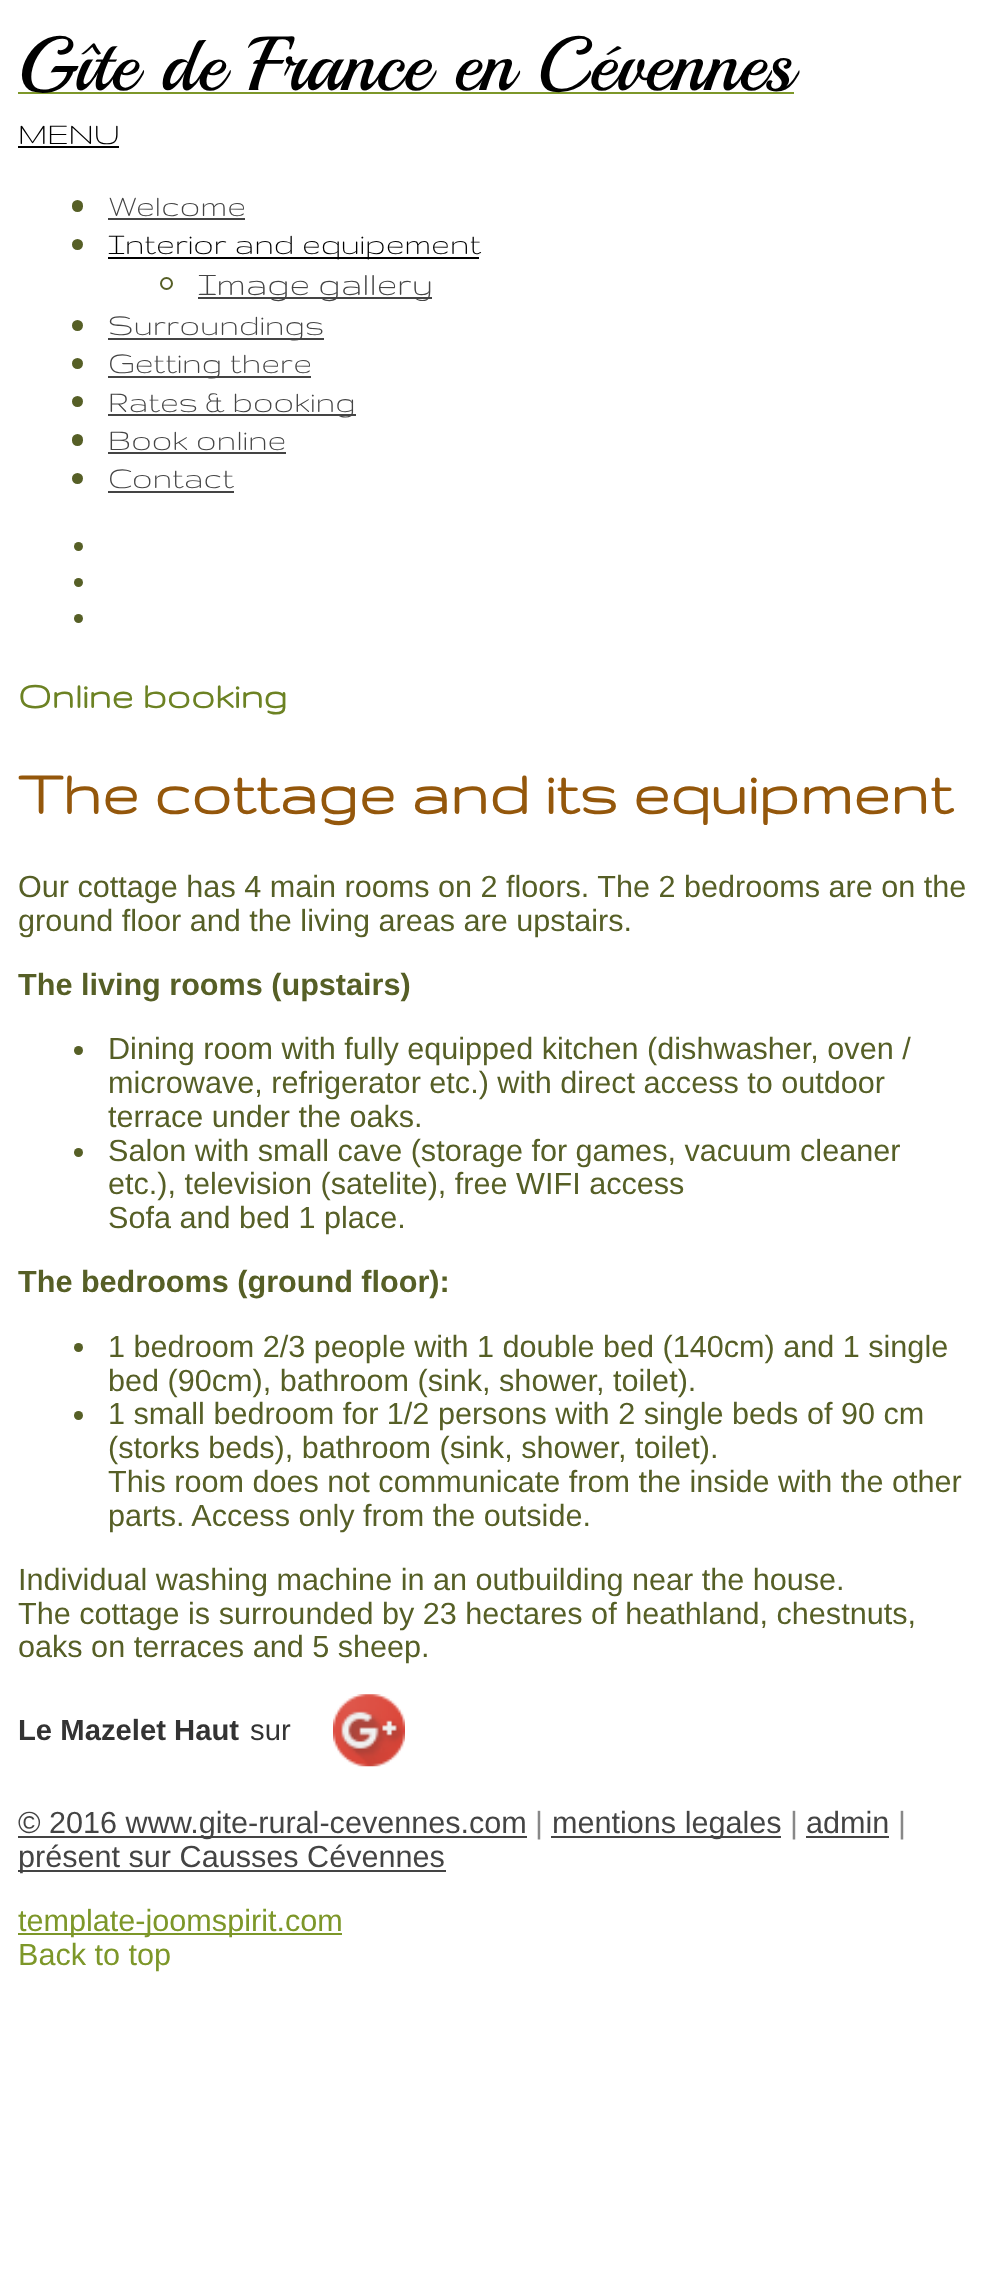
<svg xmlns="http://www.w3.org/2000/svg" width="986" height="2272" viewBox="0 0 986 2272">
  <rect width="100%" height="100%" fill="#ffffff"/>
  <rect x="18" y="92" width="776" height="2" fill="#7d9729"/>
  <text x="18" y="90" font-family="Playball" font-size="76.5" fill="#000000">Gîte de France en Cévennes</text>
  <text x="18" y="144" font-family="Gruppo" font-size="33.75" fill="#000000">MENU</text>
  <rect x="18" y="146" width="101" height="2" fill="#000000"/>
  <rect x="72" y="200" width="11" height="12" rx="5.5" fill="#565f26"/>
  <text x="108" y="216" font-family="Gruppo" font-size="33.75" fill="#444444">Welcome</text>
  <rect x="108" y="218" width="137" height="2" fill="#444444"/>
  <circle cx="77.5" cy="244.5" r="5.5" fill="#565f26"/>
  <rect x="108" y="257" width="371" height="2" fill="#000000"/>
  <text x="108" y="254" font-family="Gruppo" font-size="33.75" fill="#000000">Interior and equipement</text>
  <circle cx="166.5" cy="283.5" r="5.5" fill="none" stroke="#565f26" stroke-width="2"/>
  <rect x="198" y="297" width="234" height="2" fill="#444444"/>
  <text x="198" y="295" font-family="Gruppo" font-size="37" fill="#444444">Image gallery</text>
  <circle cx="77.5" cy="325.5" r="5.5" fill="#565f26"/>
  <rect x="108" y="338" width="216" height="2" fill="#444444"/>
  <text x="108" y="335" font-family="Gruppo" font-size="33.75" fill="#444444">Surroundings</text>
  <circle cx="77.5" cy="363.5" r="5.5" fill="#565f26"/>
  <rect x="108" y="376" width="203" height="2" fill="#444444"/>
  <text x="108" y="373" font-family="Gruppo" font-size="33.75" fill="#444444">Getting there</text>
  <circle cx="77.5" cy="401.5" r="5.5" fill="#565f26"/>
  <rect x="108" y="414" width="248" height="2" fill="#444444"/>
  <text x="108" y="412" font-family="Gruppo" font-size="33.75" fill="#444444">Rates &amp; booking</text>
  <rect x="72" y="434" width="11" height="12" rx="5.5" fill="#565f26"/>
  <text x="108" y="450" font-family="Gruppo" font-size="33.75" fill="#444444">Book online</text>
  <rect x="108" y="452" width="178" height="2" fill="#444444"/>
  <circle cx="77.5" cy="478.5" r="5.5" fill="#565f26"/>
  <text x="108" y="488" font-family="Gruppo" font-size="33.75" fill="#444444">Contact</text>
  <rect x="108" y="491" width="126" height="2" fill="#444444"/>
  <circle cx="78.5" cy="546.5" r="4.5" fill="#565f26"/>
  <circle cx="78.5" cy="582.5" r="4.5" fill="#565f26"/>
  <circle cx="78.5" cy="618.5" r="4.5" fill="#565f26"/>
  <text x="18" y="708" font-family="Gruppo" font-size="39.75" font-weight="bold" fill="#6c8223">Online booking</text>
  <text x="18" y="814" font-family="Gruppo" font-size="67.25" font-weight="bold" fill="#94570b">The cottage and its equipment</text>
  <text x="18" y="897" font-family="Liberation Sans" font-size="30.6" fill="#565f26">Our cottage has 4 main rooms on 2 floors. The 2 bedrooms are on the</text>
  <text x="18" y="931" font-family="Liberation Sans" font-size="30.6" fill="#565f26">ground floor and the living areas are upstairs.</text>
  <text x="18" y="995" font-family="Liberation Sans" font-size="30.6" font-weight="bold" fill="#565f26">The living rooms (upstairs)</text>
  <circle cx="78.5" cy="1050.5" r="4.5" fill="#565f26"/>
  <text x="108" y="1059" font-family="Liberation Sans" font-size="30.6" fill="#565f26">Dining room with fully equipped kitchen (dishwasher, oven /</text>
  <text x="108" y="1093" font-family="Liberation Sans" font-size="30.6" fill="#565f26">microwave, refrigerator etc.) with direct access to outdoor</text>
  <text x="108" y="1127" font-family="Liberation Sans" font-size="30.6" fill="#565f26">terrace under the oaks.</text>
  <circle cx="78.5" cy="1152.5" r="4.5" fill="#565f26"/>
  <text x="108" y="1161" font-family="Liberation Sans" font-size="30.6" fill="#565f26">Salon with small cave (storage for games, vacuum cleaner</text>
  <text x="108" y="1194" font-family="Liberation Sans" font-size="30.6" fill="#565f26">etc.), television (satelite), free WIFI access</text>
  <text x="108" y="1228" font-family="Liberation Sans" font-size="30.6" fill="#565f26">Sofa and bed 1 place.</text>
  <text x="18" y="1292" font-family="Liberation Sans" font-size="30.6" font-weight="bold" fill="#565f26">The bedrooms (ground floor):</text>
  <circle cx="78.5" cy="1347.5" r="4.5" fill="#565f26"/>
  <text x="108" y="1357" font-family="Liberation Sans" font-size="30.6" fill="#565f26">1 bedroom 2/3 people with 1 double bed (140cm) and 1 single</text>
  <text x="108" y="1391" font-family="Liberation Sans" font-size="30.6" fill="#565f26">bed (90cm), bathroom (sink, shower, toilet).</text>
  <circle cx="78.5" cy="1415.5" r="4.5" fill="#565f26"/>
  <text x="108" y="1424" font-family="Liberation Sans" font-size="30.6" fill="#565f26">1 small bedroom for 1/2 persons with 2 single beds of 90 cm</text>
  <text x="108" y="1458" font-family="Liberation Sans" font-size="30.6" fill="#565f26">(storks beds), bathroom (sink, shower, toilet).</text>
  <text x="108" y="1492" font-family="Liberation Sans" font-size="30.6" fill="#565f26">This room does not communicate from the inside with the other</text>
  <text x="108" y="1526" font-family="Liberation Sans" font-size="30.6" fill="#565f26">parts. Access only from the outside.</text>
  <text x="18" y="1590" font-family="Liberation Sans" font-size="30.6" fill="#565f26">Individual washing machine in an outbuilding near the house.</text>
  <text x="18" y="1624" font-family="Liberation Sans" font-size="30.6" fill="#565f26">The cottage is surrounded by 23 hectares of heathland, chestnuts,</text>
  <text x="18" y="1657" font-family="Liberation Sans" font-size="30.6" fill="#565f26">oaks on terraces and 5 sheep.</text>
  <text x="18" y="1740" font-family="Liberation Sans" font-size="29.25" font-weight="bold" fill="#333333">Le Mazelet Haut</text>
  <text x="250" y="1740" font-family="Liberation Sans" font-size="29.25" fill="#333333">sur</text>
  <image x="333" y="1694" width="72" height="73" href="img1.png"/>
  <rect x="18" y="1836" width="509" height="2" fill="#444444"/>
  <text x="18" y="1833" font-family="Liberation Sans" font-size="30.6" fill="#444444">© 2016 www.gite-rural-cevennes.com</text>
  <text x="535" y="1833" font-family="Liberation Sans" font-size="30.6" fill="#888888">|</text>
  <rect x="551" y="1836" width="230" height="2" fill="#444444"/>
  <text x="552" y="1833" font-family="Liberation Sans" font-size="30.6" fill="#444444">mentions legales</text>
  <text x="790" y="1833" font-family="Liberation Sans" font-size="30.6" fill="#888888">|</text>
  <text x="806" y="1833" font-family="Liberation Sans" font-size="30.6" fill="#444444">admin</text>
  <rect x="806" y="1836" width="83" height="2" fill="#444444"/>
  <text x="898" y="1833" font-family="Liberation Sans" font-size="30.6" fill="#888888">|</text>
  <rect x="18" y="1870" width="428" height="2" fill="#444444"/>
  <text x="18" y="1867" font-family="Liberation Sans" font-size="30.6" fill="#444444">présent sur Causses Cévennes</text>
  <rect x="18" y="1933" width="324" height="2" fill="#7d9729"/>
  <text x="18" y="1931" font-family="Liberation Sans" font-size="30.6" fill="#7d9729">template-joomspirit.com</text>
  <text x="18" y="1965" font-family="Liberation Sans" font-size="30.6" fill="#7d9729">Back to top</text>
</svg>
